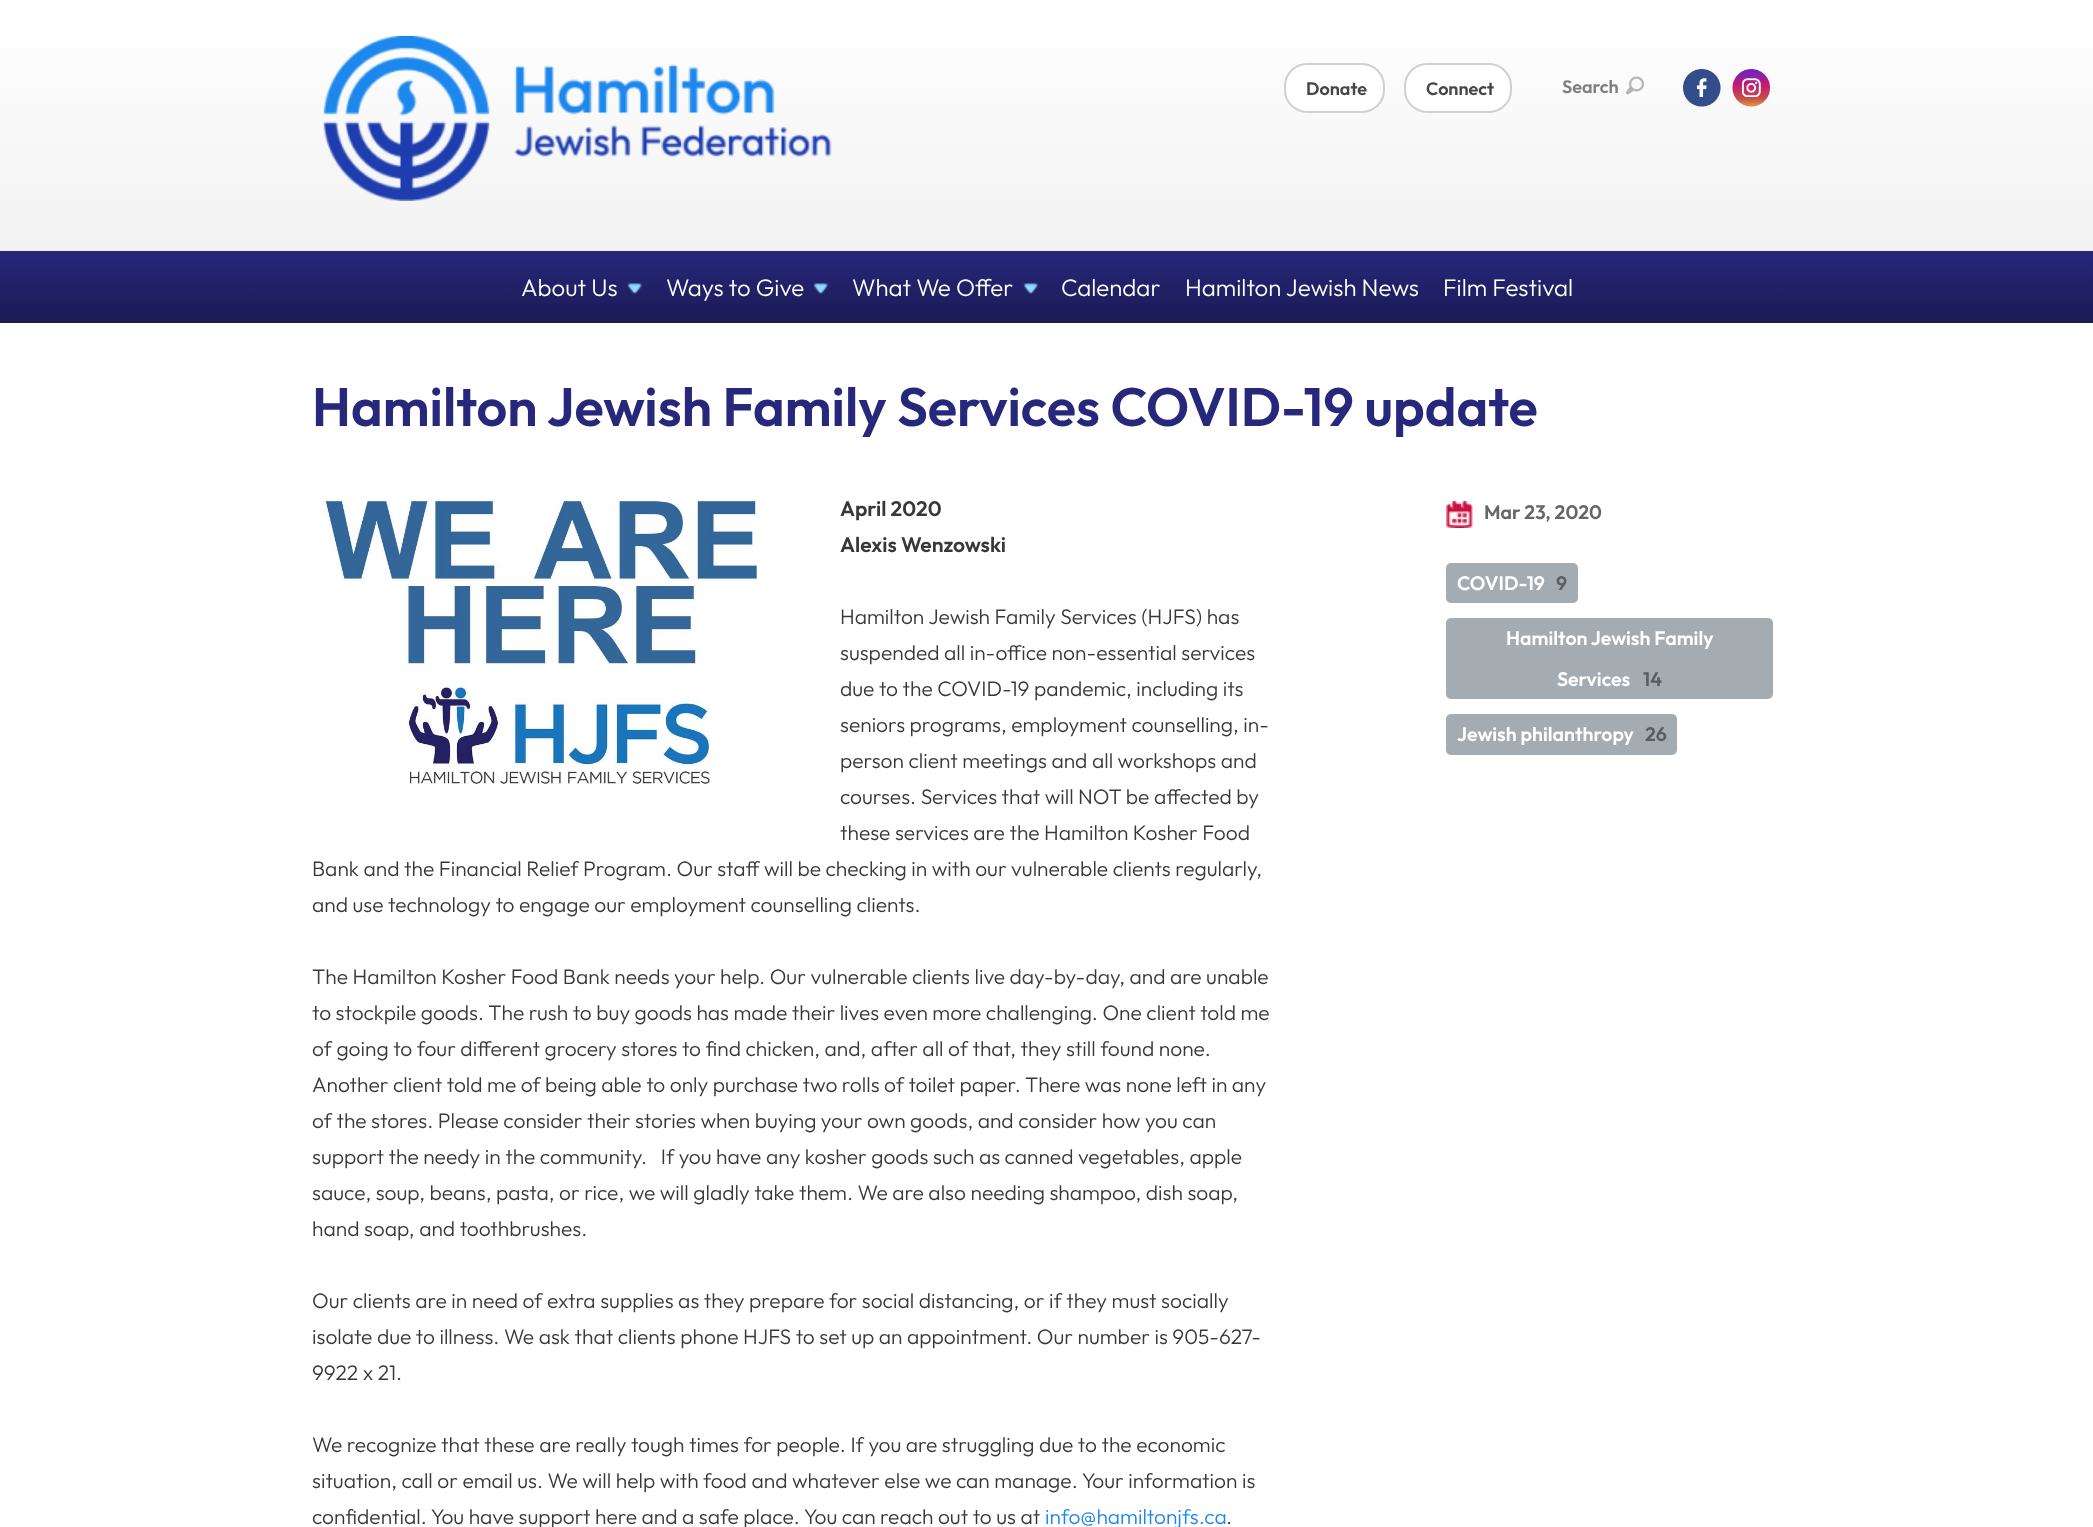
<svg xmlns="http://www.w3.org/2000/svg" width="2093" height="1527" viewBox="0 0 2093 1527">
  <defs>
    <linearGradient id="g1" gradientUnits="userSpaceOnUse" x1="1047" y1="0" x2="1047" y2="251"><stop offset="0" stop-color="#ffffff"/><stop offset="1" stop-color="#f2f2f2"/></linearGradient>
    <linearGradient id="g2" gradientUnits="userSpaceOnUse" x1="1047" y1="250" x2="1047" y2="323"><stop offset="0" stop-color="#27277c"/><stop offset="1" stop-color="#1b1b55"/></linearGradient>
  </defs>
  <rect width="100%" height="100%" fill="#ffffff"/>
  <rect x="0" y="48" width="2093" height="203" fill="url(#g1)"/>
  <image x="323" y="36" width="509" height="165" href="img1.png"/>
  <rect x="1285" y="64" width="99" height="48" rx="22" fill="#ffffff" stroke="#d0d0d0" stroke-width="2"/>
  <text x="1306" y="95" font-family="Outfit" font-size="18" font-weight="600" fill="#464646">Donate</text>
  <rect x="1405" y="64" width="106" height="48" rx="22" fill="#ffffff" stroke="#d0d0d0" stroke-width="2"/>
  <text x="1426" y="95" font-family="Outfit" font-size="18" font-weight="600" fill="#464646">Connect</text>
  <text x="1562" y="93" font-family="Outfit" font-size="18" font-weight="600" fill="#7f7f7f">Search</text>
  <image x="1626" y="76" width="18" height="19" href="img2.png"/>
  <image x="1683" y="69" width="38" height="38" href="img3.png"/>
  <image x="1732" y="69" width="38" height="38" href="img4.png"/>
  <rect x="0" y="251" width="2093" height="72" fill="url(#g2)"/>
  <text x="521" y="296" font-family="Outfit" font-size="24" font-weight="300" fill="#ffffff">About Us</text>
  <image x="627" y="283" width="15" height="11" href="img5.png"/>
  <text x="666" y="296" font-family="Outfit" font-size="24" font-weight="300" fill="#ffffff">Ways to Give</text>
  <image x="813" y="283" width="15" height="11" href="img5.png"/>
  <text x="852" y="296" font-family="Outfit" font-size="24" font-weight="300" fill="#ffffff">What We Offer</text>
  <image x="1023" y="283" width="15" height="11" href="img6.png"/>
  <text x="1061" y="296" font-family="Outfit" font-size="24" font-weight="300" fill="#ffffff">Calendar</text>
  <text x="1185" y="296" font-family="Outfit" font-size="24" font-weight="300" fill="#ffffff">Hamilton Jewish News</text>
  <text x="1443" y="296" font-family="Outfit" font-size="24" font-weight="300" fill="#ffffff">Film Festival</text>
  <text x="312" y="426" font-family="Outfit" font-size="54" font-weight="600" fill="#27277c">Hamilton Jewish Family Services COVID-19 update</text>
  <image x="322" y="499" width="438" height="285" href="img7.png"/>
  <text x="840" y="516" font-family="Outfit" font-size="21" font-weight="600" fill="#383838">April 2020</text>
  <text x="840" y="552" font-family="Outfit" font-size="21" font-weight="600" fill="#383838">Alexis Wenzowski</text>
  <text x="840" y="624" font-family="Outfit" font-size="21" font-weight="300" fill="#383838">Hamilton Jewish Family Services (HJFS) has</text>
  <text x="840" y="660" font-family="Outfit" font-size="21" font-weight="300" fill="#383838">suspended all in-office non-essential services</text>
  <text x="840" y="696" font-family="Outfit" font-size="21" font-weight="300" fill="#383838">due to the COVID-19 pandemic, including its</text>
  <text x="840" y="732" font-family="Outfit" font-size="21" font-weight="300" fill="#383838">seniors programs, employment counselling, in-</text>
  <text x="840" y="768" font-family="Outfit" font-size="21" font-weight="300" fill="#383838">person client meetings and all workshops and</text>
  <text x="840" y="804" font-family="Outfit" font-size="21" font-weight="300" fill="#383838">courses. Services that will NOT be affected by</text>
  <text x="840" y="840" font-family="Outfit" font-size="21" font-weight="300" fill="#383838">these services are the Hamilton Kosher Food</text>
  <text x="312" y="876" font-family="Outfit" font-size="21" font-weight="300" fill="#383838">Bank and the Financial Relief Program. Our staff will be checking in with our vulnerable clients regularly,</text>
  <text x="312" y="912" font-family="Outfit" font-size="21" font-weight="300" fill="#383838">and use technology to engage our employment counselling clients.</text>
  <text x="312" y="984" font-family="Outfit" font-size="21" font-weight="300" fill="#383838">The Hamilton Kosher Food Bank needs your help. Our vulnerable clients live day-by-day, and are unable</text>
  <text x="312" y="1020" font-family="Outfit" font-size="21" font-weight="300" fill="#383838">to stockpile goods. The rush to buy goods has made their lives even more challenging. One client told me</text>
  <text x="312" y="1056" font-family="Outfit" font-size="21" font-weight="300" fill="#383838">of going to four different grocery stores to find chicken, and, after all of that, they still found none.</text>
  <text x="312" y="1092" font-family="Outfit" font-size="21" font-weight="300" fill="#383838">Another client told me of being able to only purchase two rolls of toilet paper. There was none left in any</text>
  <text x="312" y="1128" font-family="Outfit" font-size="21" font-weight="300" fill="#383838">of the stores. Please consider their stories when buying your own goods, and consider how you can</text>
  <text x="312" y="1164" font-family="Outfit" font-size="21" font-weight="300" fill="#383838" xml:space="preserve">support the needy in the community.   If you have any kosher goods such as canned vegetables, apple</text>
  <text x="312" y="1200" font-family="Outfit" font-size="21" font-weight="300" fill="#383838">sauce, soup, beans, pasta, or rice, we will gladly take them. We are also needing shampoo, dish soap,</text>
  <text x="312" y="1236" font-family="Outfit" font-size="21" font-weight="300" fill="#383838">hand soap, and toothbrushes.</text>
  <text x="312" y="1308" font-family="Outfit" font-size="21" font-weight="300" fill="#383838">Our clients are in need of extra supplies as they prepare for social distancing, or if they must socially</text>
  <text x="312" y="1344" font-family="Outfit" font-size="21" font-weight="300" fill="#383838">isolate due to illness. We ask that clients phone HJFS to set up an appointment. Our number is 905-627-</text>
  <text x="312" y="1380" font-family="Outfit" font-size="21" font-weight="300" fill="#383838">9922 x 21.</text>
  <text x="312" y="1452" font-family="Outfit" font-size="21" font-weight="300" fill="#383838">We recognize that these are really tough times for people. If you are struggling due to the economic</text>
  <text x="312" y="1488" font-family="Outfit" font-size="21" font-weight="300" fill="#383838">situation, call or email us. We will help with food and whatever else we can manage. Your information is</text>
  <text x="312" y="1524" font-family="Outfit" font-size="21" font-weight="300" fill="#383838">confidential. You have support here and a safe place. You can reach out to us at</text>
  <text x="1045" y="1524" font-family="Outfit" font-size="21" font-weight="300" fill="#1c88ed">info@hamiltonjfs.ca</text>
  <text x="1226" y="1524" font-family="Outfit" font-size="21" font-weight="300" fill="#383838">.</text>
  <image x="1446" y="501" width="27" height="27" href="img8.png"/>
  <text x="1484" y="519" font-family="Outfit" font-size="19.5" font-weight="600" fill="#666666">Mar 23, 2020</text>
  <rect x="1446" y="563" width="132" height="40" rx="5" fill="#a4acb1"/>
  <text x="1457" y="590" font-family="Outfit" font-size="19.5" font-weight="600" fill="#ffffff">COVID-19</text>
  <text x="1556" y="590" font-family="Outfit" font-size="19.5" font-weight="600" fill="#575f63">9</text>
  <rect x="1446" y="618" width="327" height="81" rx="5" fill="#a4acb1"/>
  <text x="1506" y="645" font-family="Outfit" font-size="19.5" font-weight="600" fill="#ffffff">Hamilton Jewish Family</text>
  <text x="1557" y="686" font-family="Outfit" font-size="19.5" font-weight="600" fill="#ffffff">Services</text>
  <text x="1643" y="686" font-family="Outfit" font-size="19.5" font-weight="600" fill="#575f63">14</text>
  <rect x="1446" y="714" width="231" height="41" rx="5" fill="#a4acb1"/>
  <text x="1457" y="741" font-family="Outfit" font-size="19.5" font-weight="600" fill="#ffffff">Jewish philanthropy</text>
  <text x="1645" y="741" font-family="Outfit" font-size="19.5" font-weight="600" fill="#575f63">26</text>
</svg>
